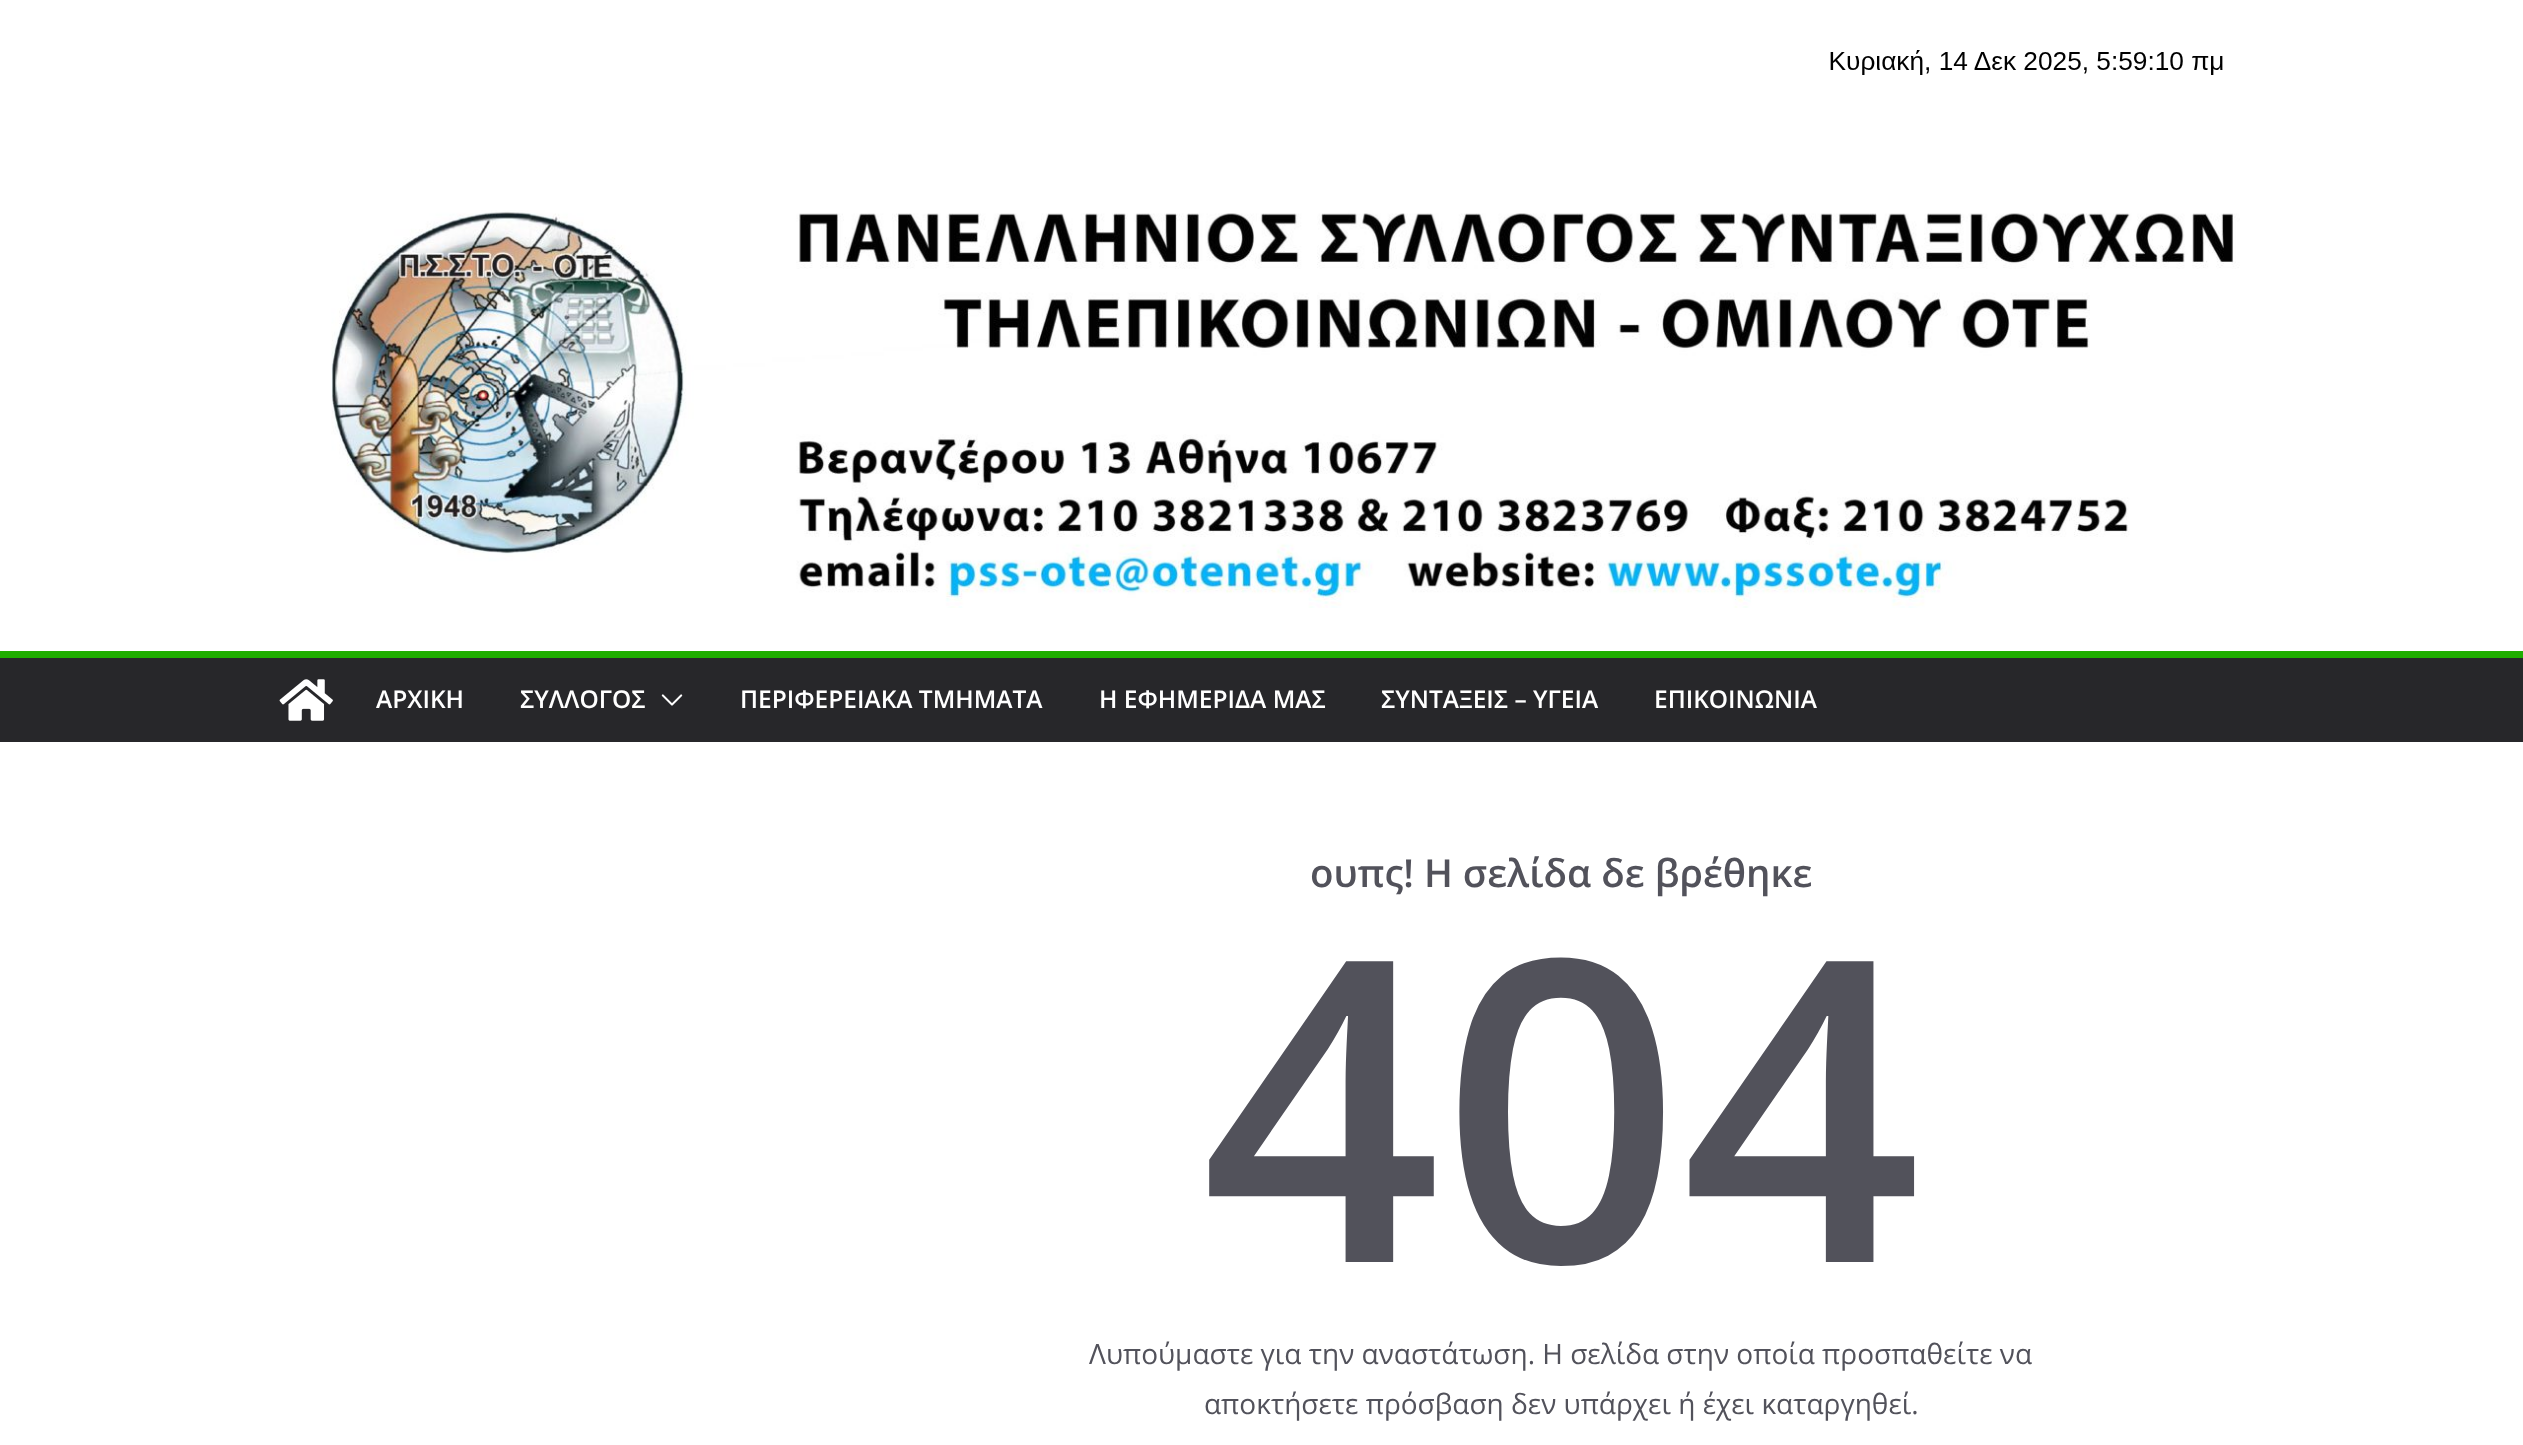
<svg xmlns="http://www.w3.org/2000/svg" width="2523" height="1445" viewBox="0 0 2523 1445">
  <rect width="100%" height="100%" fill="#ffffff"/>
  <image x="1830" y="50" width="393" height="25" href="img1.png"/>
  <image x="331" y="210" width="1909" height="398" href="img2.png"/>
  <rect x="0" y="658" width="2523" height="84" fill="#27272a"/>
  <rect x="0" y="651" width="2523" height="7" fill="#1fad00"/>
  <image x="279" y="679" width="54" height="42" href="img3.png"/>
  <text x="376" y="708" font-family="Open Sans" font-size="24.5" font-weight="600" fill="#ffffff">ΑΡΧΙΚΗ</text>
  <text x="520" y="708" font-family="Open Sans" font-size="24.5" font-weight="600" fill="#ffffff">ΣΥΛΛΟΓΟΣ</text>
  <image x="661" y="694" width="22" height="12" href="img4.png"/>
  <text x="740" y="708" font-family="Open Sans" font-size="24.5" font-weight="600" fill="#ffffff">ΠΕΡΙΦΕΡΕΙΑΚΑ ΤΜΗΜΑΤΑ</text>
  <text x="1099" y="708" font-family="Open Sans" font-size="24.5" font-weight="600" fill="#ffffff">Η ΕΦΗΜΕΡΙΔΑ ΜΑΣ</text>
  <text x="1381" y="708" font-family="Open Sans" font-size="24.5" font-weight="600" fill="#ffffff">ΣΥΝΤΑΞΕΙΣ – ΥΓΕΙΑ</text>
  <text x="1654" y="708" font-family="Open Sans" font-size="24.5" font-weight="600" fill="#ffffff">ΕΠΙΚΟΙΝΩΝΙΑ</text>
  <text x="1310" y="887" font-family="Open Sans" font-size="38.5" font-weight="600" fill="#52525b">ουπς! Η σελίδα δε βρέθηκε</text>
  <text x="1201" y="1262" font-family="Open Sans" font-size="420" font-weight="600" fill="#52525b">404</text>
  <text x="1089" y="1364" font-family="Open Sans" font-size="28" fill="#52525b">Λυπούμαστε για την αναστάτωση. Η σελίδα στην οποία προσπαθείτε να</text>
  <text x="1204" y="1414" font-family="Open Sans" font-size="28" fill="#52525b">αποκτήσετε πρόσβαση δεν υπάρχει ή έχει καταργηθεί.</text>
</svg>
